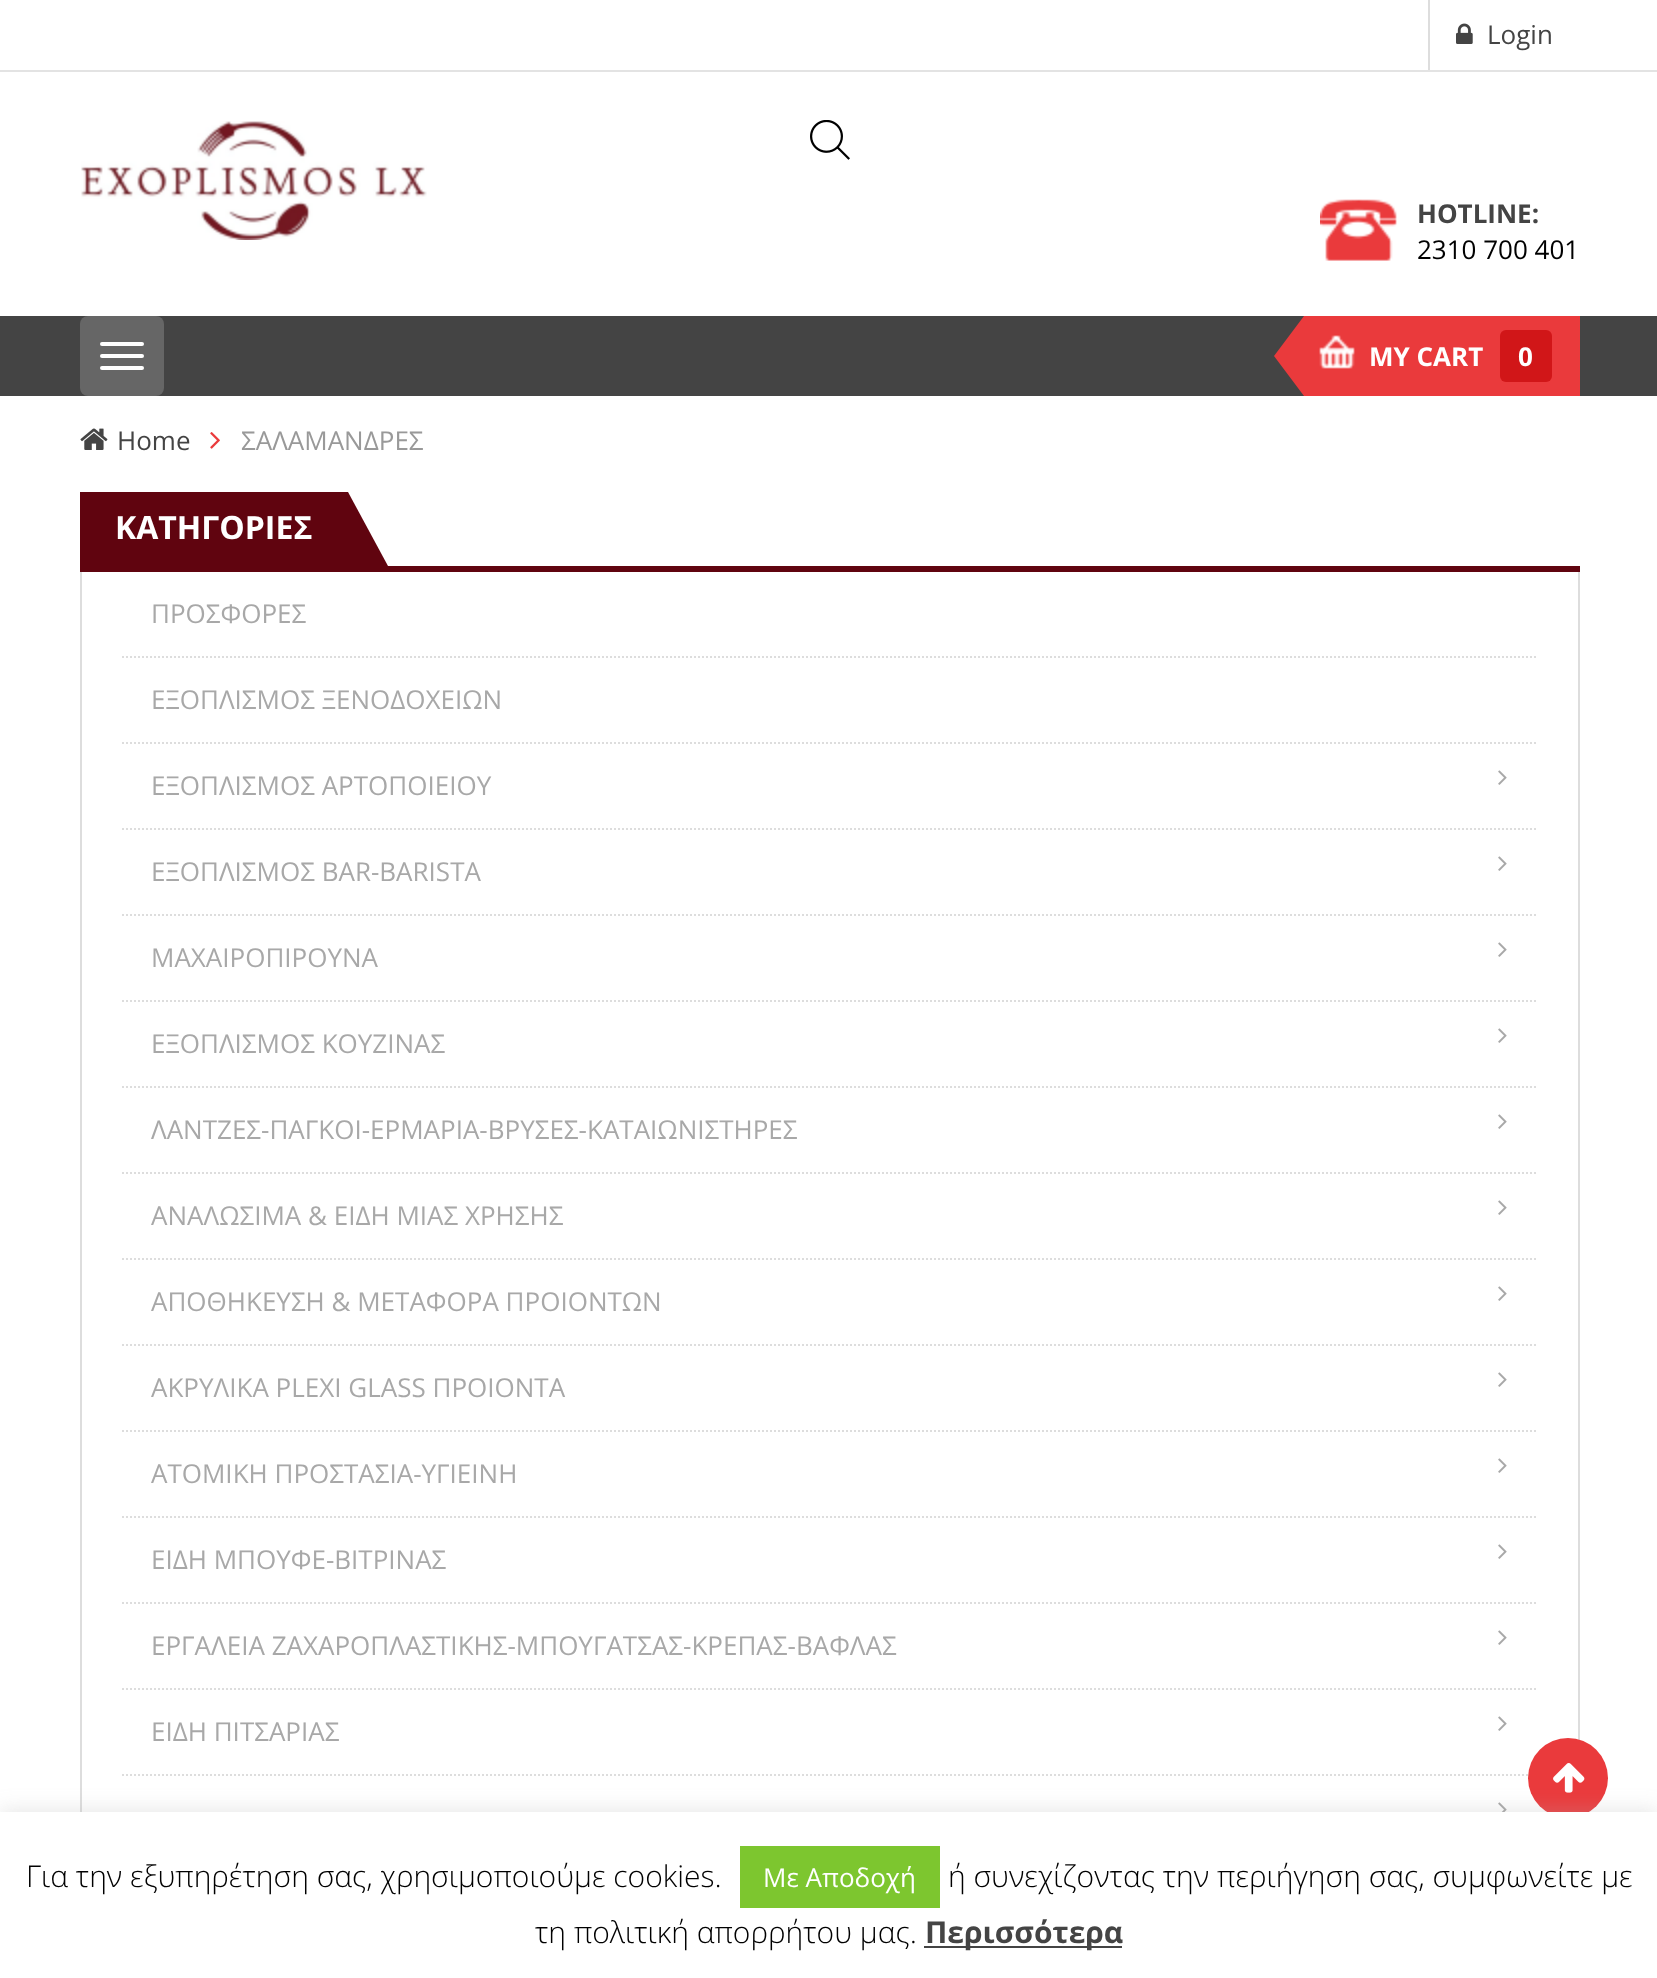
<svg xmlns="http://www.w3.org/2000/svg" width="1657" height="1978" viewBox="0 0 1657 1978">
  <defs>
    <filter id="blur1" x="-50%" y="-200%" width="200%" height="500%"><feGaussianBlur stdDeviation="10"/></filter>
  </defs>
  <rect width="100%" height="100%" fill="#ffffff"/>
  <rect x="0" y="70" width="1657" height="2" fill="#e3e3e3"/>
  <rect x="1428" y="0" width="2" height="70" fill="#dddddd"/>
  <image x="1456" y="23" width="17" height="21" href="img1.png"/>
  <text x="1487" y="44" font-family="Open Sans" font-size="26" fill="#444444">Login</text>
  <image x="81" y="121" width="346" height="119" href="img2.png"/>
  <image x="810" y="120" width="40" height="40" href="img3.png"/>
  <image x="1320" y="199" width="77" height="62" href="img4.png"/>
  <text x="1417" y="223" font-family="Open Sans" font-size="26" font-weight="bold" fill="#444444">HOTLINE:</text>
  <text x="1417" y="259" font-family="Open Sans" font-size="26" fill="#000000">2310 700 401</text>
  <rect x="0" y="316" width="1657" height="80" fill="#444444"/>
  <rect x="80" y="316" width="84" height="80" rx="8" fill="#666666"/>
  <rect x="100" y="342" width="44" height="4" rx="2" fill="#ffffff"/>
  <rect x="100" y="354" width="44" height="4" rx="2" fill="#ffffff"/>
  <rect x="100" y="366" width="44" height="4" rx="2" fill="#ffffff"/>
  <rect x="1304" y="316" width="276" height="80" fill="#ea3a3c"/>
  <image x="1319" y="335" width="36" height="34" href="img5.png"/>
  <path d="M1304 316V396L1274 356Z" fill="#ea3a3c"/>
  <text x="1369" y="366" font-family="Open Sans" font-size="26" font-weight="bold" fill="#ffffff">MY CART</text>
  <rect x="1500" y="330" width="52" height="52" rx="6" fill="#d11618"/>
  <text x="1518" y="366" font-family="Open Sans" font-size="26" font-weight="bold" fill="#ffffff">0</text>
  <image x="80" y="428" width="28" height="22" href="img6.png"/>
  <text x="117" y="450" font-family="Open Sans" font-size="26" fill="#444444">Home</text>
  <image x="210" y="432" width="10" height="17" href="img7.png"/>
  <text x="241" y="450" font-family="Open Sans" font-size="26" fill="#999999">ΣΑΛΑΜΑΝΔΡΕΣ</text>
  <rect x="80" y="566" width="1500" height="6" fill="#60040f"/>
  <rect x="80" y="492" width="268" height="74" fill="#60040f"/>
  <text x="115" y="539" font-family="Open Sans" font-size="32" font-weight="bold" fill="#ffffff">ΚΑΤΗΓΟΡΙΕΣ</text>
  <path d="M388 566H348V492Z" fill="#60040f"/>
  <rect x="1578" y="572" width="2" height="1168" fill="#dddddd"/>
  <rect x="80" y="572" width="2" height="1240" fill="#dddddd"/>
  <path d="M122 657H1538" fill="none" stroke="#dddddd" stroke-width="2" stroke-dasharray="2 2"/>
  <text x="151" y="623" font-family="Open Sans" font-size="26" fill="#a8a8a8">ΠΡΟΣΦΟΡΕΣ</text>
  <path d="M122 743H1538" fill="none" stroke="#dddddd" stroke-width="2" stroke-dasharray="2 2"/>
  <text x="151" y="709" font-family="Open Sans" font-size="26" fill="#a8a8a8">ΕΞΟΠΛΙΣΜΟΣ ΞΕΝΟΔΟΧΕΙΩΝ</text>
  <path d="M122 829H1538" fill="none" stroke="#dddddd" stroke-width="2" stroke-dasharray="2 2"/>
  <text x="151" y="795" font-family="Open Sans" font-size="26" fill="#a8a8a8">ΕΞΟΠΛΙΣΜΟΣ ΑΡΤΟΠΟΙΕΙΟΥ</text>
  <image x="1498" y="770" width="9" height="15" href="img8.png"/>
  <path d="M122 915H1538" fill="none" stroke="#dddddd" stroke-width="2" stroke-dasharray="2 2"/>
  <text x="151" y="881" font-family="Open Sans" font-size="26" fill="#a8a8a8">ΕΞΟΠΛΙΣΜΟΣ BAR-BARISTA</text>
  <image x="1498" y="856" width="9" height="15" href="img8.png"/>
  <path d="M122 1001H1538" fill="none" stroke="#dddddd" stroke-width="2" stroke-dasharray="2 2"/>
  <text x="151" y="967" font-family="Open Sans" font-size="26" fill="#a8a8a8">ΜΑΧΑΙΡΟΠΙΡΟΥΝΑ</text>
  <image x="1498" y="942" width="9" height="15" href="img8.png"/>
  <path d="M122 1087H1538" fill="none" stroke="#dddddd" stroke-width="2" stroke-dasharray="2 2"/>
  <text x="151" y="1053" font-family="Open Sans" font-size="26" fill="#a8a8a8">ΕΞΟΠΛΙΣΜΟΣ ΚΟΥΖΙΝΑΣ</text>
  <image x="1498" y="1028" width="9" height="15" href="img8.png"/>
  <path d="M122 1173H1538" fill="none" stroke="#dddddd" stroke-width="2" stroke-dasharray="2 2"/>
  <text x="151" y="1139" font-family="Open Sans" font-size="26" fill="#a8a8a8">ΛΑΝΤΖΕΣ-ΠΑΓΚΟΙ-ΕΡΜΑΡΙΑ-ΒΡΥΣΕΣ-ΚΑΤΑΙΩΝΙΣΤΗΡΕΣ</text>
  <image x="1498" y="1114" width="9" height="15" href="img8.png"/>
  <path d="M122 1259H1538" fill="none" stroke="#dddddd" stroke-width="2" stroke-dasharray="2 2"/>
  <text x="151" y="1225" font-family="Open Sans" font-size="26" fill="#a8a8a8">ΑΝΑΛΩΣΙΜΑ &amp; ΕΙΔΗ ΜΙΑΣ ΧΡΗΣΗΣ</text>
  <image x="1498" y="1200" width="9" height="15" href="img8.png"/>
  <path d="M122 1345H1538" fill="none" stroke="#dddddd" stroke-width="2" stroke-dasharray="2 2"/>
  <text x="151" y="1311" font-family="Open Sans" font-size="26" fill="#a8a8a8">ΑΠΟΘΗΚΕΥΣΗ &amp; ΜΕΤΑΦΟΡΑ ΠΡΟΙΟΝΤΩΝ</text>
  <image x="1498" y="1286" width="9" height="15" href="img8.png"/>
  <path d="M122 1431H1538" fill="none" stroke="#dddddd" stroke-width="2" stroke-dasharray="2 2"/>
  <text x="151" y="1397" font-family="Open Sans" font-size="26" fill="#a8a8a8">ΑΚΡΥΛΙΚΑ PLEXI GLASS ΠΡΟΙΟΝΤΑ</text>
  <image x="1498" y="1372" width="9" height="15" href="img8.png"/>
  <path d="M122 1517H1538" fill="none" stroke="#dddddd" stroke-width="2" stroke-dasharray="2 2"/>
  <text x="151" y="1483" font-family="Open Sans" font-size="26" fill="#a8a8a8">ΑΤΟΜΙΚΗ ΠΡΟΣΤΑΣΙΑ-ΥΓΙΕΙΝΗ</text>
  <image x="1498" y="1458" width="9" height="15" href="img8.png"/>
  <path d="M122 1603H1538" fill="none" stroke="#dddddd" stroke-width="2" stroke-dasharray="2 2"/>
  <text x="151" y="1569" font-family="Open Sans" font-size="26" fill="#a8a8a8">ΕΙΔΗ ΜΠΟΥΦΕ-ΒΙΤΡΙΝΑΣ</text>
  <image x="1498" y="1544" width="9" height="15" href="img8.png"/>
  <path d="M122 1689H1538" fill="none" stroke="#dddddd" stroke-width="2" stroke-dasharray="2 2"/>
  <text x="151" y="1655" font-family="Open Sans" font-size="26" fill="#a8a8a8">ΕΡΓΑΛΕΙΑ ΖΑΧΑΡΟΠΛΑΣΤΙΚΗΣ-ΜΠΟΥΓΑΤΣΑΣ-ΚΡΕΠΑΣ-ΒΑΦΛΑΣ</text>
  <image x="1498" y="1630" width="9" height="15" href="img8.png"/>
  <path d="M122 1775H1538" fill="none" stroke="#dddddd" stroke-width="2" stroke-dasharray="2 2"/>
  <text x="151" y="1741" font-family="Open Sans" font-size="26" fill="#a8a8a8">ΕΙΔΗ ΠΙΤΣΑΡΙΑΣ</text>
  <image x="1498" y="1716" width="9" height="15" href="img8.png"/>
  <image x="1498" y="1802" width="9" height="10" href="img9.png"/>
  <circle cx="1568" cy="1778" r="40" fill="#ea3a3c"/>
  <image x="1553" y="1763" width="32" height="30" href="img10.png"/>
  <rect x="0" y="1810" width="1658" height="166" fill="#acabab" fill-opacity="0.3" filter="url(#blur1)"/>
  <rect x="0" y="1812" width="1657" height="166" fill="#ffffff"/>
  <text x="26" y="1887" font-family="Open Sans" font-size="30" font-weight="300" fill="#000000">Για την εξυπηρέτηση σας, χρησιμοποιούμε cookies.</text>
  <rect x="740" y="1846" width="200" height="62" fill="#7dc62f"/>
  <text x="763" y="1887" font-family="Open Sans" font-size="26" fill="#ffffff">Με Αποδοχή</text>
  <text x="948" y="1887" font-family="Open Sans" font-size="30" font-weight="300" fill="#000000">ή συνεχίζοντας την περιήγηση σας, συμφωνείτε με</text>
  <text x="535" y="1943" font-family="Open Sans" font-size="30" font-weight="300" fill="#000000">τη πολιτική απορρήτου μας.</text>
  <rect x="924" y="1946" width="198" height="2" fill="#444444"/>
  <text x="925" y="1943" font-family="Open Sans" font-size="30" font-weight="bold" fill="#444444">Περισσότερα</text>
</svg>
